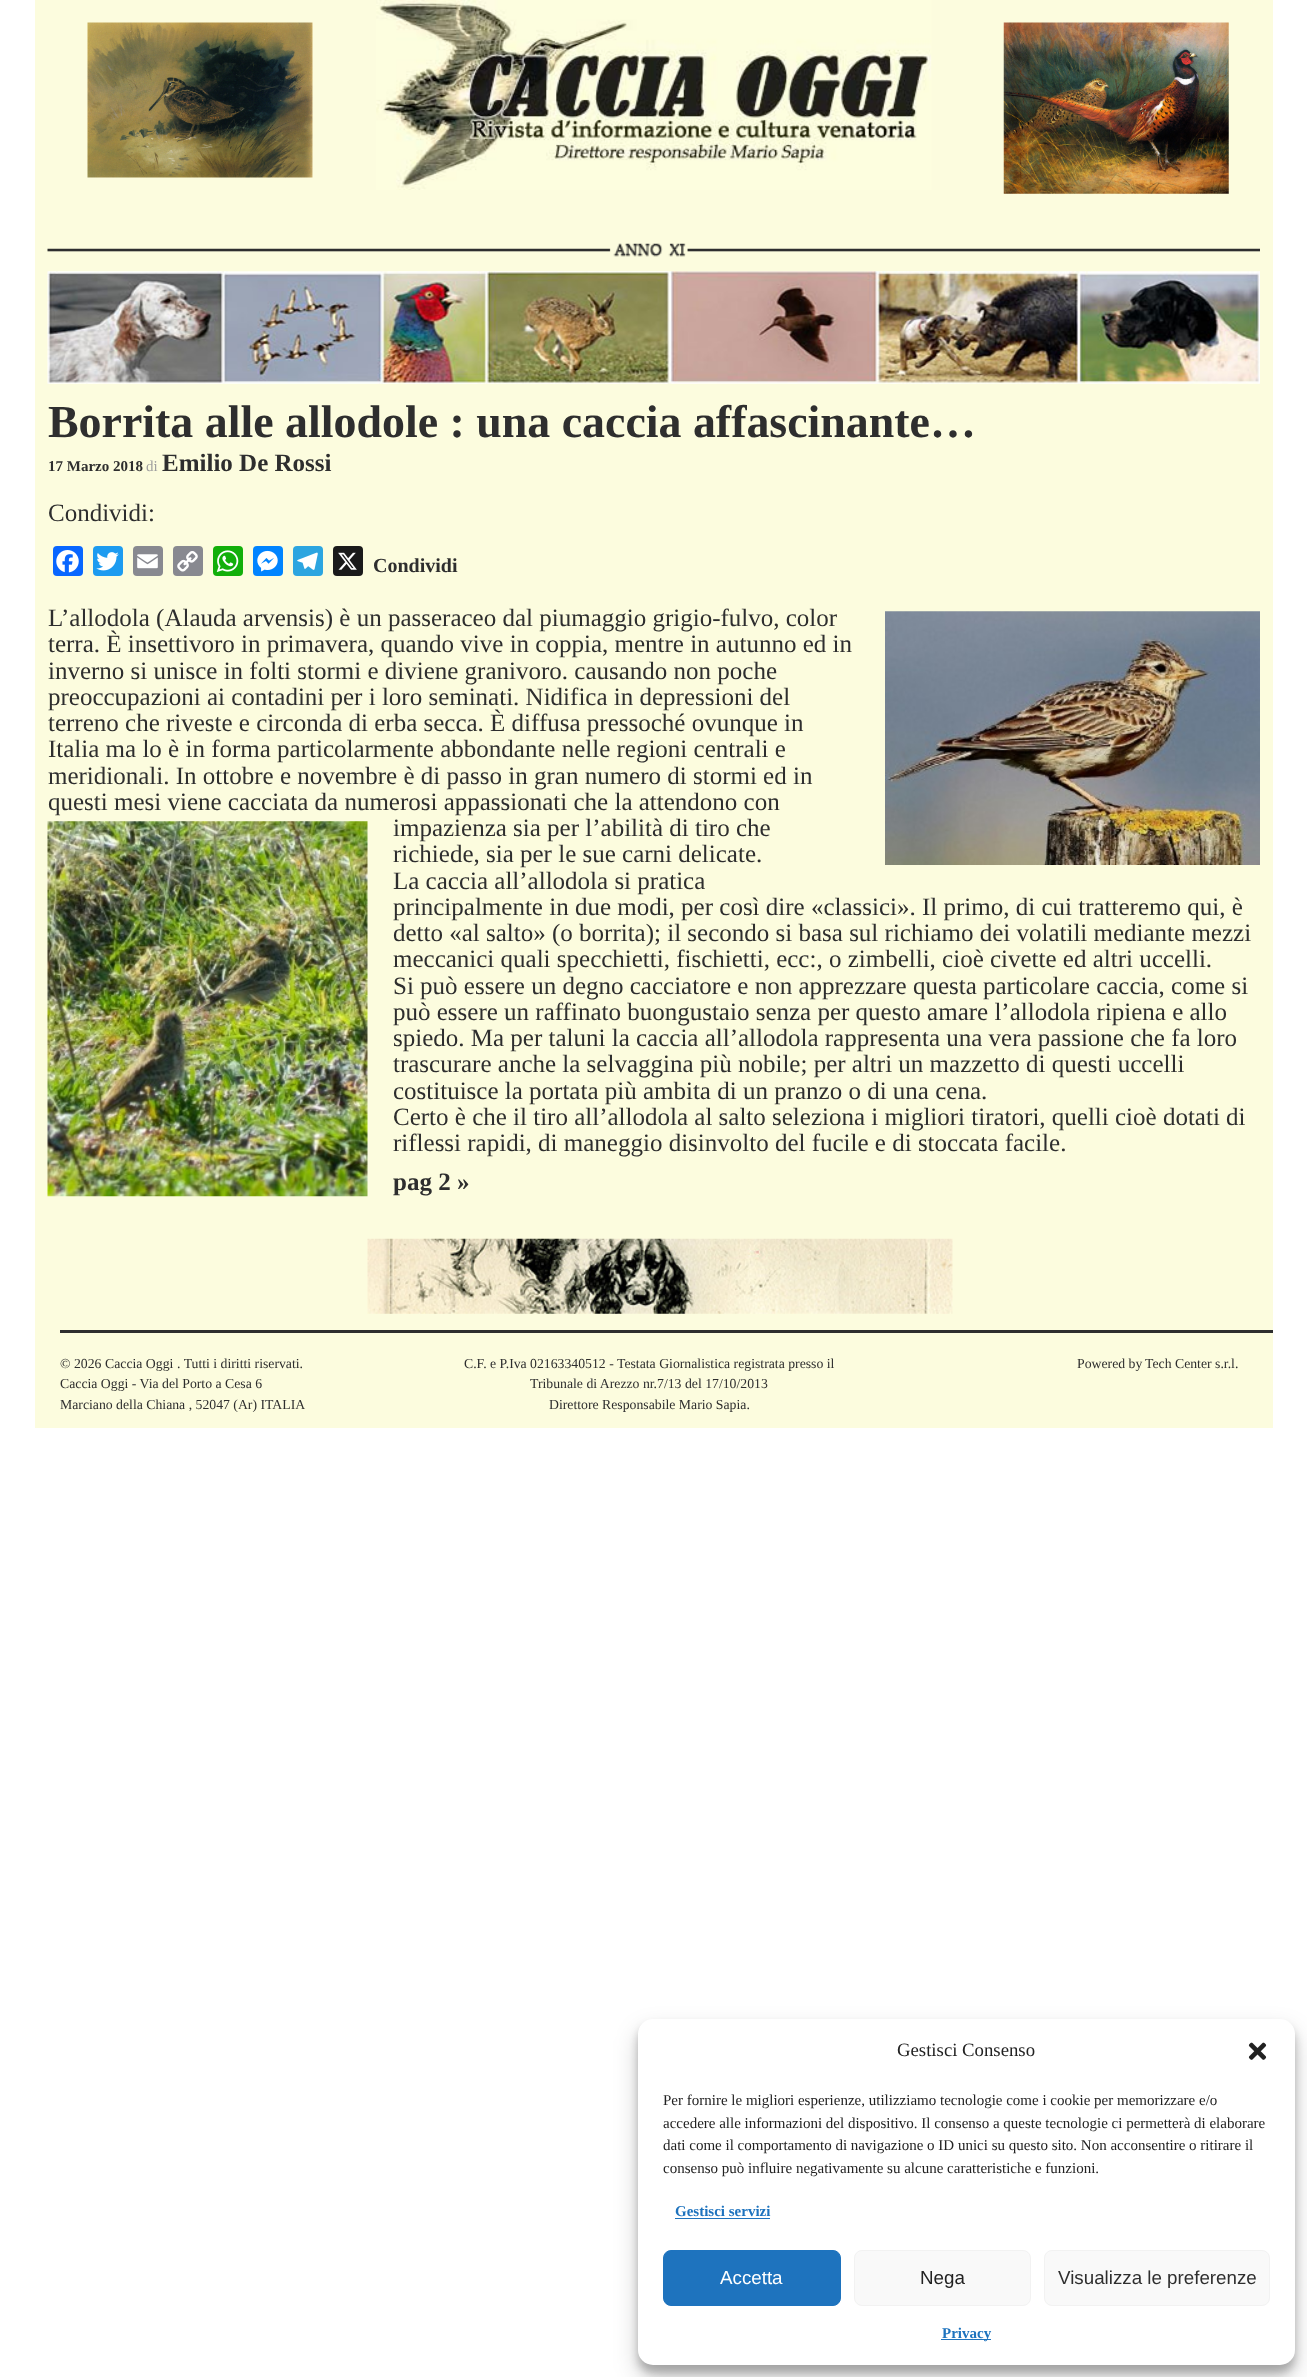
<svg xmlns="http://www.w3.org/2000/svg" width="1307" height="2377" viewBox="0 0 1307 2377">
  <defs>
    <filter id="blur1" x="-50%" y="-200%" width="200%" height="500%"><feGaussianBlur stdDeviation="4"/></filter>
    <filter id="blur2" x="-50%" y="-200%" width="200%" height="500%"><feGaussianBlur stdDeviation="12.5"/></filter>
  </defs>
  <rect width="100%" height="100%" fill="#ffffff"/>
  <rect x="35" y="0" width="1238" height="1428" fill="#fcfcde"/>
  <image x="87" y="22" width="226" height="156" href="img1.png"/>
  <image x="376" y="0" width="556" height="190" href="img2.png"/>
  <image x="1003" y="22" width="226" height="172" href="img3.png"/>
  <image x="47" y="243" width="1213" height="14" href="img4.png"/>
  <image x="47" y="271" width="1213" height="113" href="img5.png"/>
  <text x="48" y="437" font-family="Liberation Serif" font-size="45.9" font-weight="bold" fill="#2e2e2e">Borrita alle allodole : una caccia affascinante…</text>
  <text x="48" y="471" font-family="Liberation Serif" font-size="15" font-weight="bold" fill="#2e2e2e">17 Marzo 2018</text>
  <text x="146" y="471" font-family="Liberation Serif" font-size="15" fill="#9f9f9f">di</text>
  <text x="162" y="471" font-family="Liberation Serif" font-size="25" font-weight="bold" fill="#2e2e2e">Emilio De Rossi</text>
  <text x="48" y="521" font-family="Liberation Serif" font-size="25" fill="#2e2e2e">Condividi:</text>
  <rect x="53" y="546" width="30" height="30" rx="4" fill="#0866ff"/>
  <image x="56" y="550" width="23" height="23" href="img6.png"/>
  <rect x="93" y="546" width="30" height="30" rx="4" fill="#1d9bf0"/>
  <image x="96" y="552" width="23" height="19" href="img7.png"/>
  <rect x="133" y="546" width="30" height="30" rx="4" fill="#888990"/>
  <image x="137" y="554" width="21" height="15" href="img8.png"/>
  <rect x="173" y="546" width="30" height="30" rx="4" fill="#888990"/>
  <image x="177" y="551" width="21" height="21" href="img9.png"/>
  <rect x="213" y="546" width="30" height="30" rx="4" fill="#12af0a"/>
  <image x="216" y="550" width="23" height="22" href="img10.png"/>
  <rect x="253" y="546" width="30" height="30" rx="4" fill="#0084ff"/>
  <image x="257" y="550" width="21" height="22" href="img11.png"/>
  <rect x="293" y="546" width="30" height="30" rx="4" fill="#2ca5e0"/>
  <image x="297" y="552" width="21" height="18" href="img12.png"/>
  <rect x="333" y="546" width="30" height="30" rx="4" fill="#1a1a1a"/>
  <image x="338" y="552" width="19" height="18" href="img13.png"/>
  <text x="373" y="572" font-family="Liberation Serif" font-size="20" font-weight="bold" fill="#2e2e2e">Condividi</text>
  <text x="48" y="626" font-family="Liberation Serif" font-size="25" fill="#2e2e2e">L’allodola (Alauda arvensis) è un passeraceo dal piumaggio grigio-fulvo, color</text>
  <image x="885" y="611" width="375" height="254" href="img14.png"/>
  <text x="48" y="652" font-family="Liberation Serif" font-size="25" fill="#2e2e2e">terra. È insettivoro in primavera, quando vive in coppia, mentre in autunno ed in</text>
  <text x="48" y="679" font-family="Liberation Serif" font-size="25" fill="#2e2e2e">inverno si unisce in folti stormi e diviene granivoro. causando non poche</text>
  <text x="48" y="705" font-family="Liberation Serif" font-size="25" fill="#2e2e2e">preoccupazioni ai contadini per i loro seminati. Nidifica in depressioni del</text>
  <text x="48" y="731" font-family="Liberation Serif" font-size="25" fill="#2e2e2e">terreno che riveste e circonda di erba secca. È diffusa pressoché ovunque in</text>
  <text x="48" y="757" font-family="Liberation Serif" font-size="25" fill="#2e2e2e">Italia ma lo è in forma particolarmente abbondante nelle regioni centrali e</text>
  <text x="48" y="784" font-family="Liberation Serif" font-size="25" fill="#2e2e2e">meridionali. In ottobre e novembre è di passo in gran numero di stormi ed in</text>
  <text x="48" y="810" font-family="Liberation Serif" font-size="25" fill="#2e2e2e">questi mesi viene cacciata da numerosi appassionati che la attendono con</text>
  <image x="47" y="821" width="321" height="376" href="img15.png"/>
  <text x="393" y="836" font-family="Liberation Serif" font-size="25" fill="#2e2e2e">impazienza sia per l’abilità di tiro che</text>
  <text x="393" y="862" font-family="Liberation Serif" font-size="25" fill="#2e2e2e">richiede, sia per le sue carni delicate.</text>
  <text x="393" y="889" font-family="Liberation Serif" font-size="25" fill="#2e2e2e">La caccia all’allodola si pratica</text>
  <text x="393" y="915" font-family="Liberation Serif" font-size="25" fill="#2e2e2e">principalmente in due modi, per così dire «classici». Il primo, di cui tratteremo qui, è</text>
  <text x="393" y="941" font-family="Liberation Serif" font-size="25" fill="#2e2e2e">detto «al salto» (o borrita); il secondo si basa sul richiamo dei volatili mediante mezzi</text>
  <text x="393" y="967" font-family="Liberation Serif" font-size="25" fill="#2e2e2e">meccanici quali specchietti, fischietti, ecc:, o zimbelli, cioè civette ed altri uccelli.</text>
  <text x="393" y="994" font-family="Liberation Serif" font-size="25" fill="#2e2e2e">Si può essere un degno cacciatore e non apprezzare questa particolare caccia, come si</text>
  <text x="393" y="1020" font-family="Liberation Serif" font-size="25" fill="#2e2e2e">può essere un raffinato buongustaio senza per questo amare l’allodola ripiena e allo</text>
  <text x="393" y="1046" font-family="Liberation Serif" font-size="25" fill="#2e2e2e">spiedo. Ma per taluni la caccia all’allodola rappresenta una vera passione che fa loro</text>
  <text x="393" y="1072" font-family="Liberation Serif" font-size="25" fill="#2e2e2e">trascurare anche la selvaggina più nobile; per altri un mazzetto di questi uccelli</text>
  <text x="393" y="1099" font-family="Liberation Serif" font-size="25" fill="#2e2e2e">costituisce la portata più ambita di un pranzo o di una cena.</text>
  <text x="393" y="1125" font-family="Liberation Serif" font-size="25" fill="#2e2e2e">Certo è che il tiro all’allodola al salto seleziona i migliori tiratori, quelli cioè dotati di</text>
  <text x="393" y="1151" font-family="Liberation Serif" font-size="25" fill="#2e2e2e">riflessi rapidi, di maneggio disinvolto del fucile e di stoccata facile.</text>
  <text x="393" y="1190" font-family="Liberation Serif" font-size="25" font-weight="bold" fill="#2e2e2e">pag 2 »</text>
  <image x="367" y="1238" width="586" height="76" href="img16.png"/>
  <rect x="60" y="1330" width="1213" height="3" fill="#2e2e2e"/>
  <text x="60" y="1368" font-family="Liberation Serif" font-size="13.75" fill="#2e2e2e">© 2026</text>
  <text x="105" y="1368" font-family="Liberation Serif" font-size="13.75" fill="#2e2e2e">Caccia Oggi</text>
  <text x="177" y="1368" font-family="Liberation Serif" font-size="13.75" fill="#2e2e2e">. Tutti i diritti riservati.</text>
  <text x="60" y="1388" font-family="Liberation Serif" font-size="13.75" fill="#2e2e2e">Caccia Oggi - Via del Porto a Cesa 6</text>
  <text x="60" y="1409" font-family="Liberation Serif" font-size="13.75" fill="#2e2e2e">Marciano della Chiana , 52047 (Ar) ITALIA</text>
  <text x="464" y="1368" font-family="Liberation Serif" font-size="13.75" fill="#2e2e2e">C.F. e P.Iva 02163340512 - Testata Giornalistica registrata presso il</text>
  <text x="530" y="1388" font-family="Liberation Serif" font-size="13.75" fill="#2e2e2e">Tribunale di Arezzo nr.7/13 del 17/10/2013</text>
  <text x="549" y="1409" font-family="Liberation Serif" font-size="13.75" fill="#2e2e2e">Direttore Responsabile Mario Sapia.</text>
  <text x="1077" y="1368" font-family="Liberation Serif" font-size="13.75" fill="#2e2e2e">Powered by</text>
  <text x="1145" y="1368" font-family="Liberation Serif" font-size="13.75" fill="#2e2e2e">Tech Center s.r.l.</text>
  <rect x="638" y="2026" width="657" height="347" rx="15" fill="#000000" fill-opacity="0.23" filter="url(#blur1)"/>
  <rect x="638" y="2031" width="657" height="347" rx="15" fill="#000000" fill-opacity="0.19" filter="url(#blur2)"/>
  <rect x="638" y="2019" width="657" height="346" rx="15" fill="#ffffff"/>
  <text x="897" y="2056" font-family="Liberation Serif" font-size="18.75" fill="#222222">Gestisci Consenso</text>
  <image x="1248" y="2042" width="19" height="18" href="img17.png"/>
  <text x="663" y="2105" font-family="Liberation Serif" font-size="15" fill="#222222">Per fornire le migliori esperienze, utilizziamo tecnologie come i cookie per memorizzare e/o</text>
  <text x="663" y="2128" font-family="Liberation Serif" font-size="15" fill="#222222">accedere alle informazioni del dispositivo. Il consenso a queste tecnologie ci permetterà di elaborare</text>
  <text x="663" y="2150" font-family="Liberation Serif" font-size="15" fill="#222222">dati come il comportamento di navigazione o ID unici su questo sito. Non acconsentire o ritirare il</text>
  <text x="663" y="2173" font-family="Liberation Serif" font-size="15" fill="#222222">consenso può influire negativamente su alcune caratteristiche e funzioni.</text>
  <text x="675" y="2216" font-family="Liberation Serif" font-size="15" font-weight="bold" fill="#1e73be">Gestisci servizi</text>
  <rect x="675" y="2218" width="95" height="1" fill="#1e73be"/>
  <rect x="663.5" y="2250.5" width="177" height="55" rx="7.5" fill="#1e73be" stroke="#1e73be"/>
  <text x="720" y="2284" font-family="Liberation Sans" font-size="18.75" fill="#ffffff">Accetta</text>
  <rect x="854.5" y="2250.5" width="176" height="55" rx="7.5" fill="#f9f9f9" stroke="#f2f2f2"/>
  <text x="920" y="2284" font-family="Liberation Sans" font-size="18.75" fill="#222222">Nega</text>
  <rect x="1044.5" y="2250.5" width="225" height="55" rx="7.5" fill="#f9f9f9" stroke="#f2f2f2"/>
  <text x="1058" y="2284" font-family="Liberation Sans" font-size="18.75" fill="#2e2e2e">Visualizza le preferenze</text>
  <rect x="941" y="2339" width="50" height="1" fill="#1e73be"/>
  <text x="942" y="2338" font-family="Liberation Serif" font-size="15" font-weight="bold" fill="#1e73be">Privacy</text>
</svg>
